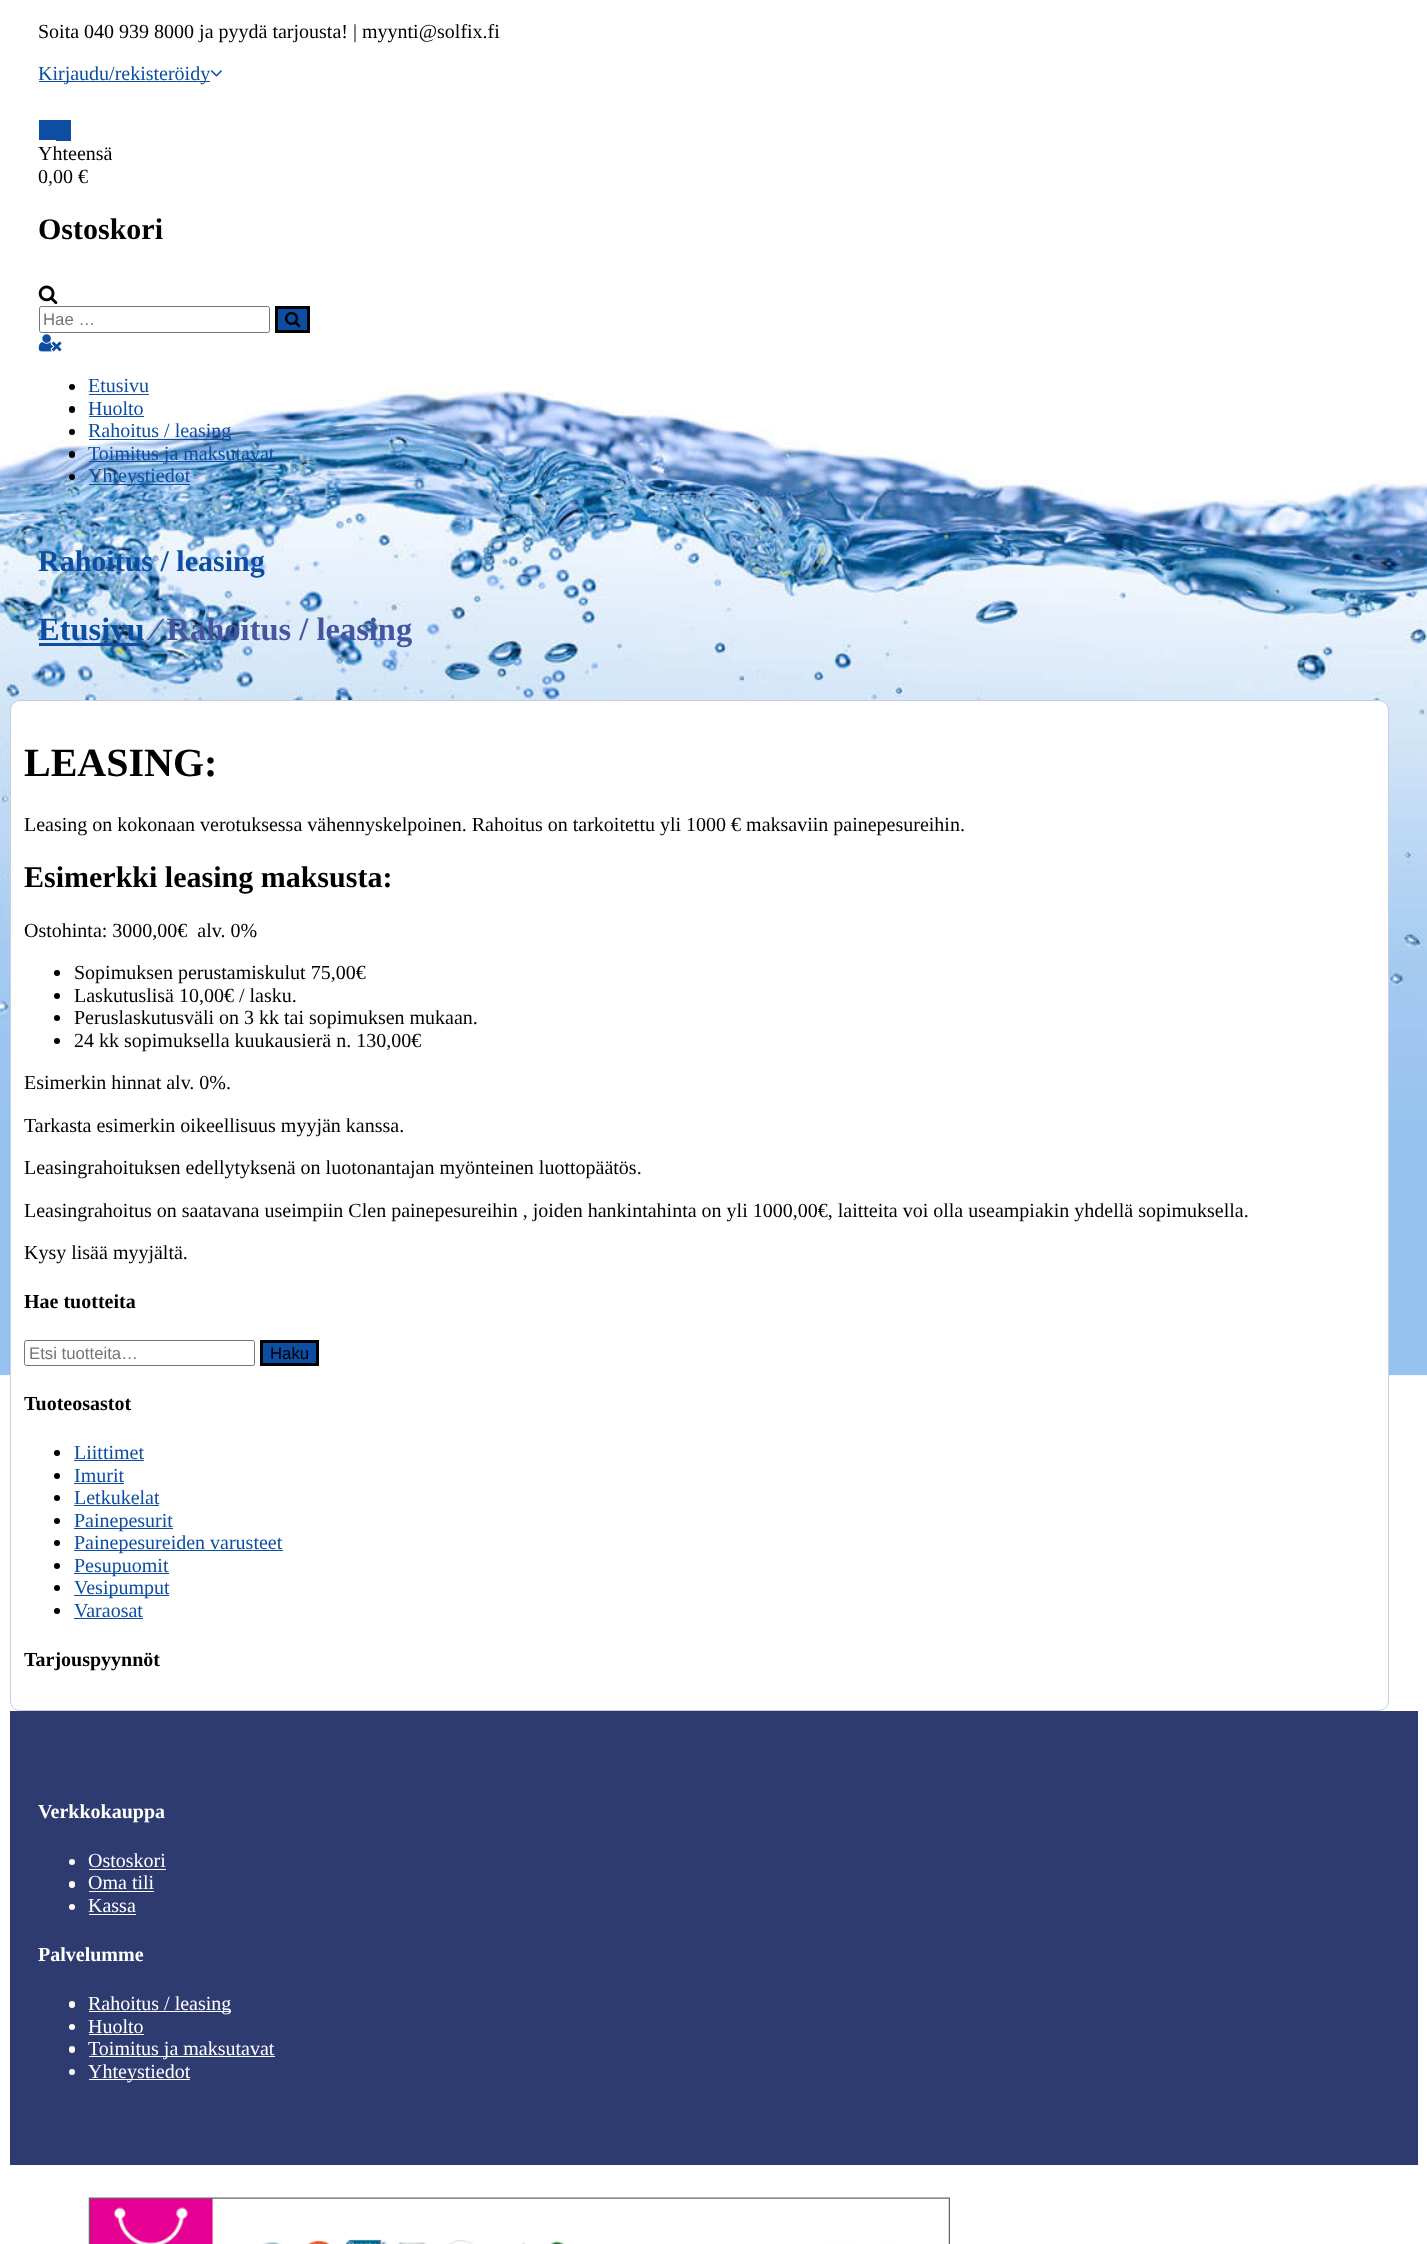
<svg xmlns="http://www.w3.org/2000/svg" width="1427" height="2244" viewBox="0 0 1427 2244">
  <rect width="100%" height="100%" fill="#ffffff"/>
  <image x="0" y="390" width="1427" height="986" href="img1.png"/>
  <text x="38" y="38" font-family="Liberation Serif" font-size="20" fill="#000000">Soita 040 939 8000 ja pyydä tarjousta! | myynti@solfix.fi</text>
  <rect x="39" y="81" width="171" height="1" fill="#0d4ea3"/>
  <text x="38" y="80" font-family="Liberation Serif" font-size="20" fill="#0d4ea3">Kirjaudu/rekisteröidy</text>
  <image x="210" y="70" width="12" height="7" href="img2.png"/>
  <rect x="39" y="120" width="17" height="20" fill="#0d4ea3"/>
  <rect x="56" y="120" width="15" height="21" fill="#0d4ea3"/>
  <image x="38" y="123" width="1" height="2" href="img3.png"/>
  <text x="38" y="160" font-family="Liberation Serif" font-size="20" fill="#000000">Yhteensä</text>
  <text x="38" y="183" font-family="Liberation Serif" font-size="20" fill="#000000">0,00 €</text>
  <text x="38" y="239" font-family="Liberation Serif" font-size="30" font-weight="bold" fill="#000000">Ostoskori</text>
  <image x="38" y="285" width="20" height="20" href="img4.png"/>
  <rect x="39.5" y="306.5" width="230" height="26" rx="2" fill="none" stroke="#767676"/>
  <text x="43" y="325" font-family="Liberation Sans" font-size="16.75" fill="#757575">Hae …</text>
  <rect x="276.5" y="307.5" width="32" height="24" fill="#0d4ea3" stroke="#000000" stroke-width="3"/>
  <image x="285" y="311" width="16" height="17" href="img5.png"/>
  <image x="38" y="334" width="24" height="18" href="img6.png"/>
  <circle cx="72" cy="387" r="3" fill="#000000"/>
  <text x="88" y="392" font-family="Liberation Serif" font-size="20" fill="#0d4ea3">Etusivu</text>
  <rect x="89" y="394" width="60" height="1" fill="#0d4ea3"/>
  <rect x="69" y="406" width="6" height="7" rx="3" fill="#000000"/>
  <text x="88" y="415" font-family="Liberation Serif" font-size="20" fill="#0d4ea3">Huolto</text>
  <rect x="89" y="416" width="55" height="1" fill="#0d4ea3"/>
  <circle cx="72" cy="432" r="3" fill="#000000"/>
  <rect x="89" y="439" width="142" height="1" fill="#0d4ea3"/>
  <text x="88" y="437" font-family="Liberation Serif" font-size="20" fill="#0d4ea3">Rahoitus / leasing</text>
  <rect x="69" y="451" width="6" height="7" rx="3" fill="#000000"/>
  <rect x="89" y="461" width="186" height="1" fill="#0d4ea3"/>
  <text x="88" y="460" font-family="Liberation Serif" font-size="20" fill="#0d4ea3">Toimitus ja maksutavat</text>
  <circle cx="72" cy="477" r="3" fill="#000000"/>
  <rect x="89" y="484" width="101" height="1" fill="#0d4ea3"/>
  <text x="88" y="482" font-family="Liberation Serif" font-size="20" fill="#0d4ea3">Yhteystiedot</text>
  <text x="38" y="571" font-family="Liberation Serif" font-size="30" font-weight="bold" fill="#0d4ea3">Rahoitus / leasing</text>
  <text x="38" y="640" font-family="Liberation Serif" font-size="32.5" font-weight="bold" fill="#0d4ea3">Etusivu</text>
  <rect x="39" y="643" width="106" height="3" fill="#0d4ea3"/>
  <text x="153" y="640" font-family="Liberation Serif" font-size="32.5" font-weight="bold" fill="#45569e">⁄ Rahoitus / leasing</text>
  <rect x="10.5" y="700.5" width="1378" height="1010" rx="9.5" fill="#ffffff" stroke="#c9cddf"/>
  <text x="24" y="776" font-family="Liberation Serif" font-size="40" font-weight="bold" fill="#000000">LEASING:</text>
  <text x="24" y="831" font-family="Liberation Serif" font-size="20" fill="#000000">Leasing on kokonaan verotuksessa vähennyskelpoinen. Rahoitus on tarkoitettu yli 1000 € maksaviin painepesureihin.</text>
  <text x="24" y="887" font-family="Liberation Serif" font-size="30" font-weight="bold" fill="#000000">Esimerkki leasing maksusta:</text>
  <text x="24" y="937" font-family="Liberation Serif" font-size="20" fill="#000000" xml:space="preserve">Ostohinta: 3000,00€  alv. 0%</text>
  <circle cx="57" cy="973" r="3" fill="#000000"/>
  <text x="74" y="979" font-family="Liberation Serif" font-size="20" fill="#000000">Sopimuksen perustamiskulut 75,00€</text>
  <circle cx="57" cy="996" r="3" fill="#000000"/>
  <text x="74" y="1002" font-family="Liberation Serif" font-size="20" fill="#000000">Laskutuslisä 10,00€ / lasku.</text>
  <circle cx="57" cy="1018" r="3" fill="#000000"/>
  <text x="74" y="1024" font-family="Liberation Serif" font-size="20" fill="#000000">Peruslaskutusväli on 3 kk tai sopimuksen mukaan.</text>
  <circle cx="57" cy="1041" r="3" fill="#000000"/>
  <text x="74" y="1047" font-family="Liberation Serif" font-size="20" fill="#000000">24 kk sopimuksella kuukausierä n. 130,00€</text>
  <text x="24" y="1089" font-family="Liberation Serif" font-size="20" fill="#000000">Esimerkin hinnat alv. 0%.</text>
  <text x="24" y="1132" font-family="Liberation Serif" font-size="20" fill="#000000">Tarkasta esimerkin oikeellisuus myyjän kanssa.</text>
  <text x="24" y="1174" font-family="Liberation Serif" font-size="20" fill="#000000">Leasingrahoituksen edellytyksenä on luotonantajan myönteinen luottopäätös.</text>
  <text x="24" y="1217" font-family="Liberation Serif" font-size="20" fill="#000000">Leasingrahoitus on saatavana useimpiin Clen painepesureihin , joiden hankintahinta on yli 1000,00€, laitteita voi olla useampiakin yhdellä sopimuksella.</text>
  <text x="24" y="1259" font-family="Liberation Serif" font-size="20" fill="#000000">Kysy lisää myyjältä.</text>
  <text x="24" y="1308" font-family="Liberation Serif" font-size="20" font-weight="bold" fill="#000000">Hae tuotteita</text>
  <rect x="24.5" y="1340.5" width="230" height="25" rx="2" fill="none" stroke="#767676"/>
  <text x="29" y="1359" font-family="Liberation Sans" font-size="16.75" fill="#757575">Etsi tuotteita…</text>
  <rect x="261.5" y="1341.5" width="56" height="23" fill="#0d4ea3" stroke="#000000" stroke-width="3"/>
  <text x="270" y="1359" font-family="Liberation Sans" font-size="16.75" fill="#000000">Haku</text>
  <text x="24" y="1410" font-family="Liberation Serif" font-size="20" font-weight="bold" fill="#000000">Tuoteosastot</text>
  <circle cx="57" cy="1453" r="3" fill="#000000"/>
  <text x="74" y="1459" font-family="Liberation Serif" font-size="20" fill="#0d4ea3">Liittimet</text>
  <rect x="74" y="1460" width="70" height="1" fill="#0d4ea3"/>
  <circle cx="57" cy="1476" r="3" fill="#000000"/>
  <text x="74" y="1482" font-family="Liberation Serif" font-size="20" fill="#0d4ea3">Imurit</text>
  <rect x="74" y="1483" width="50" height="1" fill="#0d4ea3"/>
  <circle cx="57" cy="1498" r="3" fill="#000000"/>
  <text x="74" y="1504" font-family="Liberation Serif" font-size="20" fill="#0d4ea3">Letkukelat</text>
  <rect x="74" y="1505" width="85" height="1" fill="#0d4ea3"/>
  <circle cx="57" cy="1521" r="3" fill="#000000"/>
  <rect x="74" y="1528" width="99" height="1" fill="#0d4ea3"/>
  <text x="74" y="1527" font-family="Liberation Serif" font-size="20" fill="#0d4ea3">Painepesurit</text>
  <circle cx="57" cy="1543" r="3" fill="#000000"/>
  <rect x="74" y="1550" width="209" height="1" fill="#0d4ea3"/>
  <text x="74" y="1549" font-family="Liberation Serif" font-size="20" fill="#0d4ea3">Painepesureiden varusteet</text>
  <circle cx="57" cy="1566" r="3" fill="#000000"/>
  <rect x="74" y="1573" width="95" height="1" fill="#0d4ea3"/>
  <text x="74" y="1572" font-family="Liberation Serif" font-size="20" fill="#0d4ea3">Pesupuomit</text>
  <circle cx="57" cy="1588" r="3" fill="#000000"/>
  <rect x="74" y="1595" width="95" height="1" fill="#0d4ea3"/>
  <text x="74" y="1594" font-family="Liberation Serif" font-size="20" fill="#0d4ea3">Vesipumput</text>
  <circle cx="57" cy="1611" r="3" fill="#000000"/>
  <text x="74" y="1617" font-family="Liberation Serif" font-size="20" fill="#0d4ea3">Varaosat</text>
  <rect x="74" y="1618" width="69" height="1" fill="#0d4ea3"/>
  <text x="24" y="1666" font-family="Liberation Serif" font-size="20" font-weight="bold" fill="#000000">Tarjouspyynnöt</text>
  <rect x="10" y="1711" width="1408" height="454" fill="#2e3b70"/>
  <text x="38" y="1818" font-family="Liberation Serif" font-size="20" font-weight="bold" fill="#ffffff">Verkkokauppa</text>
  <circle cx="72" cy="1862" r="3" fill="#ffffff"/>
  <text x="88" y="1867" font-family="Liberation Serif" font-size="20" fill="#ffffff">Ostoskori</text>
  <rect x="89" y="1869" width="77" height="1" fill="#ffffff"/>
  <rect x="69" y="1881" width="6" height="7" rx="3" fill="#ffffff"/>
  <text x="88" y="1889" font-family="Liberation Serif" font-size="20" fill="#ffffff">Oma tili</text>
  <rect x="89" y="1891" width="65" height="1" fill="#ffffff"/>
  <circle cx="72" cy="1907" r="3" fill="#ffffff"/>
  <text x="88" y="1912" font-family="Liberation Serif" font-size="20" fill="#ffffff">Kassa</text>
  <rect x="89" y="1914" width="47" height="1" fill="#ffffff"/>
  <text x="38" y="1961" font-family="Liberation Serif" font-size="20" font-weight="bold" fill="#ffffff">Palvelumme</text>
  <rect x="69" y="2001" width="6" height="7" rx="3" fill="#ffffff"/>
  <rect x="89" y="2011" width="142" height="1" fill="#ffffff"/>
  <text x="88" y="2010" font-family="Liberation Serif" font-size="20" fill="#ffffff">Rahoitus / leasing</text>
  <circle cx="72" cy="2027" r="3" fill="#ffffff"/>
  <text x="88" y="2033" font-family="Liberation Serif" font-size="20" fill="#ffffff">Huolto</text>
  <rect x="89" y="2034" width="55" height="1" fill="#ffffff"/>
  <rect x="69" y="2046" width="6" height="7" rx="3" fill="#ffffff"/>
  <rect x="89" y="2056" width="186" height="1" fill="#ffffff"/>
  <text x="88" y="2055" font-family="Liberation Serif" font-size="20" fill="#ffffff">Toimitus ja maksutavat</text>
  <circle cx="72" cy="2072" r="3" fill="#ffffff"/>
  <rect x="89" y="2079" width="101" height="1" fill="#ffffff"/>
  <text x="88" y="2078" font-family="Liberation Serif" font-size="20" fill="#ffffff">Yhteystiedot</text>
  <image x="88" y="2197" width="862" height="47" href="img7.png"/>
</svg>
